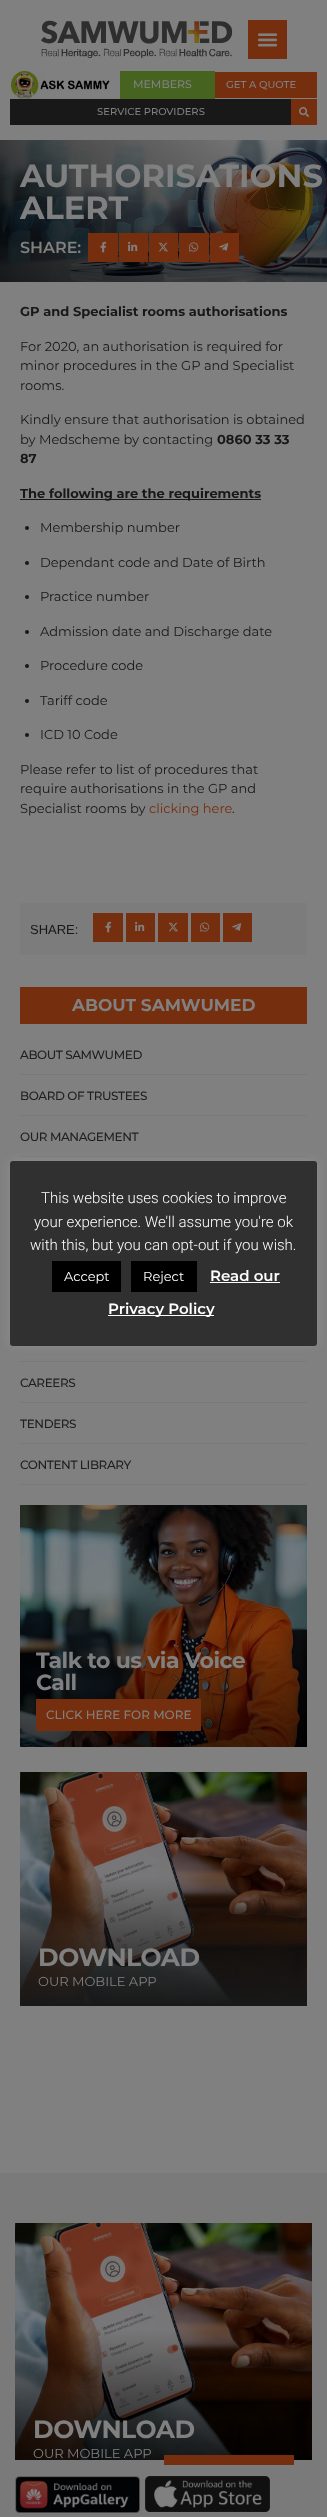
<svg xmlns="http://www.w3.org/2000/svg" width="327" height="2517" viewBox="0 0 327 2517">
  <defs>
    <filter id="blur1" x="-50%" y="-200%" width="200%" height="500%"><feGaussianBlur stdDeviation="5"/></filter>
  </defs>
  <rect width="100%" height="100%" fill="#808080"/>
  <image x="41" y="20" width="192" height="39" href="img1.png"/>
  <rect x="248" y="20" width="39" height="39" fill="#752f0e"/>
  <image x="257" y="33" width="21" height="14" href="img2.png"/>
  <image x="10" y="71" width="100" height="28" href="img3.png"/>
  <rect x="120" y="71" width="95" height="28" fill="#466320"/>
  <text x="133" y="88" font-family="Montserrat" font-size="11" font-weight="500" fill="#808080">MEMBERS</text>
  <rect x="215" y="72" width="102" height="26" fill="#752f0e"/>
  <text x="226" y="88" font-family="Montserrat" font-size="10" font-weight="500" fill="#808080">GET A QUOTE</text>
  <rect x="10" y="99" width="281" height="26" fill="#181818"/>
  <text x="97" y="115" font-family="Montserrat" font-size="10" font-weight="500" fill="#808080">SERVICE PROVIDERS</text>
  <rect x="291" y="99" width="26" height="26" fill="#752f0e"/>
  <image x="299" y="107" width="10" height="10" href="img4.png"/>
  <image x="0" y="140" width="327" height="142" href="img5.png"/>
  <text x="20" y="187" font-family="Montserrat" font-size="32" font-weight="bold" fill="#808080">AUTHORISATIONS</text>
  <text x="20" y="219" font-family="Montserrat" font-size="32" font-weight="bold" fill="#808080">ALERT</text>
  <text x="20" y="253" font-family="Montserrat" font-size="16" font-weight="600" fill="#808080">SHARE:</text>
  <rect x="88" y="233" width="30" height="29" fill="#752f0e"/>
  <image x="100" y="241" width="7" height="12" href="img6.png"/>
  <rect x="119" y="233" width="29" height="29" fill="#752f0e"/>
  <image x="128" y="241" width="10" height="10" href="img7.png"/>
  <rect x="149" y="233" width="29" height="29" fill="#752f0e"/>
  <image x="158" y="242" width="10" height="10" href="img8.png"/>
  <rect x="179" y="233" width="30" height="29" fill="#752f0e"/>
  <image x="189" y="242" width="10" height="10" href="img9.png"/>
  <rect x="210" y="233" width="29" height="29" fill="#752f0e"/>
  <image x="219" y="243" width="10" height="8" href="img10.png"/>
  <text x="20" y="316" font-family="Montserrat" font-size="13" font-weight="bold" fill="#181818">GP and Specialist rooms authorisations</text>
  <text x="20" y="351" font-family="Montserrat" font-size="13" fill="#181818">For 2020, an authorisation is required for</text>
  <text x="20" y="370" font-family="Montserrat" font-size="13" fill="#181818">minor procedures in the GP and Specialist</text>
  <text x="20" y="390" font-family="Montserrat" font-size="13" fill="#181818">rooms.</text>
  <text x="20" y="424" font-family="Montserrat" font-size="13" fill="#181818">Kindly ensure that authorisation is obtained</text>
  <text x="20" y="444" font-family="Montserrat" font-size="13" fill="#181818">by Medscheme by contacting</text>
  <text x="217" y="444" font-family="Montserrat" font-size="13" font-weight="bold" fill="#181818">0860 33 33</text>
  <text x="20" y="463" font-family="Montserrat" font-size="13" font-weight="bold" fill="#181818">87</text>
  <rect x="20" y="499" width="241" height="1" fill="#181818"/>
  <text x="20" y="498" font-family="Montserrat" font-size="13" font-weight="bold" fill="#181818">The following are the requirements</text>
  <circle cx="27" cy="528" r="2" fill="#181818"/>
  <text x="40" y="532" font-family="Montserrat" font-size="13" fill="#181818">Membership number</text>
  <circle cx="27" cy="563" r="2" fill="#181818"/>
  <text x="40" y="567" font-family="Montserrat" font-size="13" fill="#181818">Dependant code and Date of Birth</text>
  <circle cx="27" cy="597" r="2" fill="#181818"/>
  <text x="40" y="601" font-family="Montserrat" font-size="13" fill="#181818">Practice number</text>
  <circle cx="27" cy="632" r="2" fill="#181818"/>
  <text x="40" y="636" font-family="Montserrat" font-size="13" fill="#181818">Admission date and Discharge date</text>
  <circle cx="27" cy="666" r="2" fill="#181818"/>
  <text x="40" y="670" font-family="Montserrat" font-size="13" fill="#181818">Procedure code</text>
  <circle cx="27" cy="701" r="2" fill="#181818"/>
  <text x="40" y="705" font-family="Montserrat" font-size="13" fill="#181818">Tariff code</text>
  <circle cx="27" cy="735" r="2" fill="#181818"/>
  <text x="40" y="739" font-family="Montserrat" font-size="13" fill="#181818">ICD 10 Code</text>
  <text x="20" y="774" font-family="Montserrat" font-size="13" fill="#181818">Please refer to list of procedures that</text>
  <text x="20" y="793" font-family="Montserrat" font-size="13" fill="#181818">require authorisations in the GP and</text>
  <text x="20" y="813" font-family="Montserrat" font-size="13" fill="#181818">Specialist rooms by</text>
  <text x="149" y="813" font-family="Montserrat" font-size="13" fill="#752f0e">clicking here</text>
  <text x="232" y="813" font-family="Montserrat" font-size="13" fill="#181818">.</text>
  <rect x="20" y="903" width="287" height="52" fill="#7c7c7c"/>
  <text x="30" y="934" font-family="Liberation Sans" font-size="13" fill="#181818">SHARE:</text>
  <rect x="93" y="913" width="30" height="29" fill="#752f0e"/>
  <image x="105" y="921" width="7" height="12" href="img6.png"/>
  <rect x="126" y="913" width="29" height="29" fill="#752f0e"/>
  <image x="135" y="921" width="10" height="10" href="img7.png"/>
  <rect x="158" y="913" width="30" height="29" fill="#752f0e"/>
  <image x="168" y="922" width="10" height="10" href="img8.png"/>
  <rect x="191" y="913" width="29" height="29" fill="#752f0e"/>
  <image x="200" y="922" width="10" height="10" href="img9.png"/>
  <rect x="223" y="913" width="29" height="29" fill="#752f0e"/>
  <image x="232" y="923" width="10" height="8" href="img10.png"/>
  <rect x="20" y="987" width="287" height="37" fill="#752f0e"/>
  <text x="72" y="1011" font-family="Montserrat" font-size="17" font-weight="bold" fill="#808080">ABOUT SAMWUMED</text>
  <rect x="20" y="1074" width="287" height="1" fill="#797979"/>
  <text x="20" y="1059" font-family="Montserrat" font-size="12" font-weight="500" letter-spacing="-0.4" fill="#1f1d1d">ABOUT SAMWUMED</text>
  <rect x="20" y="1115" width="287" height="1" fill="#797979"/>
  <text x="20" y="1100" font-family="Montserrat" font-size="12" font-weight="500" letter-spacing="-0.4" fill="#1f1d1d">BOARD OF TRUSTEES</text>
  <rect x="20" y="1156" width="287" height="1" fill="#797979"/>
  <text x="20" y="1141" font-family="Montserrat" font-size="12" font-weight="500" letter-spacing="-0.4" fill="#1f1d1d">OUR MANAGEMENT</text>
  <rect x="20" y="1361" width="287" height="1" fill="#797979"/>
  <rect x="20" y="1402" width="287" height="1" fill="#797979"/>
  <text x="20" y="1387" font-family="Montserrat" font-size="12" font-weight="500" letter-spacing="-0.4" fill="#1f1d1d">CAREERS</text>
  <rect x="20" y="1443" width="287" height="1" fill="#797979"/>
  <text x="20" y="1428" font-family="Montserrat" font-size="12" font-weight="500" letter-spacing="-0.4" fill="#1f1d1d">TENDERS</text>
  <rect x="20" y="1484" width="287" height="1" fill="#797979"/>
  <text x="20" y="1469" font-family="Montserrat" font-size="12" font-weight="500" letter-spacing="-0.4" fill="#1f1d1d">CONTENT LIBRARY</text>
  <image x="20" y="1505" width="287" height="242" href="img11.png"/>
  <text x="36" y="1668" font-family="Montserrat" font-size="22" font-weight="bold" letter-spacing="-0.5" fill="#808080">Talk to us via Voice</text>
  <text x="36" y="1690" font-family="Montserrat" font-size="22" font-weight="bold" letter-spacing="-0.5" fill="#808080">Call</text>
  <rect x="36" y="1699" width="165" height="32" fill="#752f0e"/>
  <text x="46" y="1719" font-family="Montserrat" font-size="12" font-weight="500" fill="#808080">CLICK HERE FOR MORE</text>
  <image x="20" y="1772" width="287" height="234" href="img12.png"/>
  <text x="38" y="1966" font-family="Montserrat" font-size="25" font-weight="bold" letter-spacing="-0.5" fill="#808080">DOWNLOAD</text>
  <text x="38" y="1986" font-family="Montserrat" font-size="13" fill="#808080">OUR MOBILE APP</text>
  <rect x="10" y="1160" width="307" height="185" rx="3" fill="#acabab" fill-opacity="0.3" filter="url(#blur1)"/>
  <rect x="10" y="1161" width="307" height="185" rx="3" fill="#303030"/>
  <text x="41" y="1203" font-family="Roboto" font-size="15" font-weight="300" fill="#ffffff">This website uses cookies to improve</text>
  <text x="34" y="1227" font-family="Roboto" font-size="15" font-weight="300" fill="#ffffff">your experience. We'll assume you're ok</text>
  <text x="30" y="1250" font-family="Roboto" font-size="15" font-weight="300" fill="#ffffff">with this, but you can opt-out if you wish.</text>
  <rect x="52" y="1261" width="69" height="31" fill="#000000"/>
  <text x="64" y="1281" font-family="Montserrat" font-size="13" fill="#ffffff">Accept</text>
  <rect x="131" y="1261" width="66" height="31" fill="#000000"/>
  <text x="143" y="1281" font-family="Montserrat" font-size="13" fill="#ffffff">Reject</text>
  <text x="210" y="1281" font-family="Montserrat" font-size="15" font-weight="600" fill="#ffffff">Read our</text>
  <rect x="210" y="1282" width="70" height="1" fill="#ffffff"/>
  <rect x="108" y="1315" width="106" height="1" fill="#ffffff"/>
  <text x="108" y="1314" font-family="Montserrat" font-size="15" font-weight="600" fill="#ffffff">Privacy Policy</text>
  <rect x="0" y="2173" width="327" height="344" fill="#7a7a7a"/>
  <image x="15" y="2223" width="297" height="237" href="img13.png"/>
  <text x="33" y="2438" font-family="Montserrat" font-size="25" font-weight="bold" letter-spacing="-0.5" fill="#808080">DOWNLOAD</text>
  <text x="33" y="2458" font-family="Montserrat" font-size="13" fill="#808080">OUR MOBILE APP</text>
  <rect x="164" y="2455" width="130" height="10" fill="#752f0e"/>
  <image x="15" y="2476" width="125" height="37" href="img14.png"/>
  <image x="145" y="2476" width="125" height="36" href="img15.png"/>
</svg>
